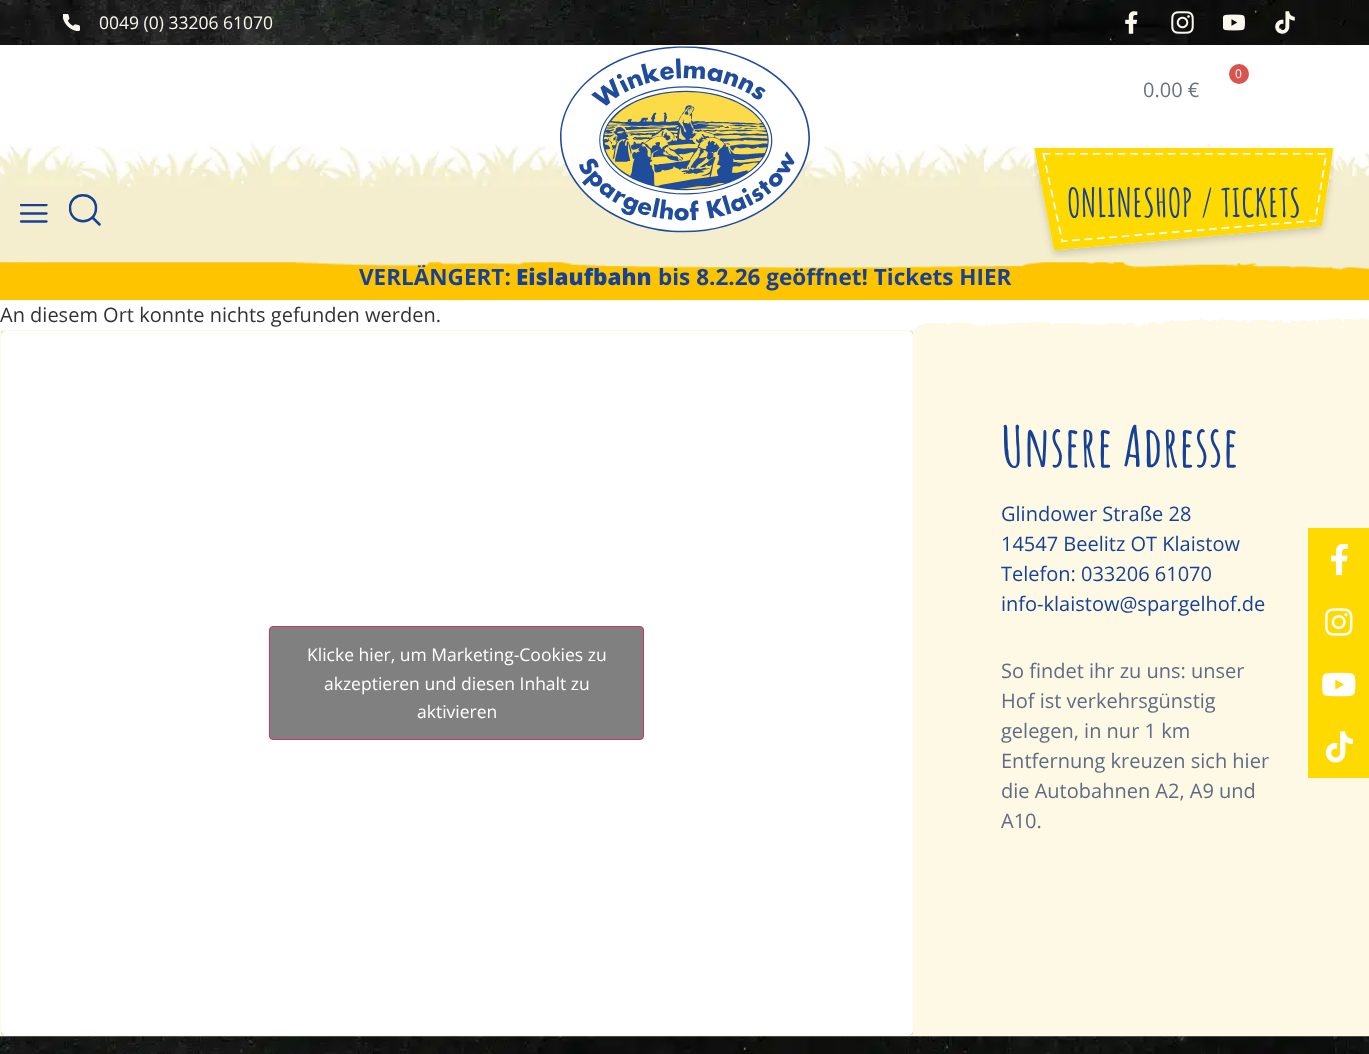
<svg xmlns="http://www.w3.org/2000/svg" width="1369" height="1054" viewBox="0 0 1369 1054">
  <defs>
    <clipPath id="clip1"><rect x="20" y="204" width="28" height="19"/></clipPath>
    <clipPath id="clip2"><rect x="69" y="194" width="32" height="32"/></clipPath>
    <clipPath id="clip3"><rect x="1" y="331" width="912" height="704"/></clipPath>
    <filter id="blur1" x="-50%" y="-200%" width="200%" height="500%"><feGaussianBlur stdDeviation="6"/></filter>
    <filter id="blur2" x="-50%" y="-200%" width="200%" height="500%"><feGaussianBlur stdDeviation="0.5"/></filter>
  </defs>
  <rect width="100%" height="100%" fill="#ffffff"/>
  <image x="0" y="0" width="1369" height="45" href="img1.png"/>
  <image x="63" y="14" width="17" height="17" href="img2.png"/>
  <text x="99" y="29" font-family="Open Sans" font-size="17.5" fill="#faf8ed">0049 (0) 33206 61070</text>
  <image x="1125" y="11" width="13" height="23" href="img3.png"/>
  <image x="1171" y="11" width="23" height="23" href="img4.png"/>
  <image x="1223" y="14" width="22" height="17" href="img5.png"/>
  <image x="1275" y="11" width="20" height="23" href="img6.png"/>
  <circle cx="1239" cy="74" r="10" fill="#d9534f"/>
  <text x="1235" y="78" font-family="Open Sans" font-size="12" fill="#ffffff">0</text>
  <text x="1143" y="97" font-family="Open Sans" font-size="20" fill="#69727d">0.00 €</text>
  <rect x="0" y="262" width="1369" height="38" fill="#ffc400"/>
  <text x="359" y="285" font-family="Open Sans" font-size="22.5" font-weight="bold" fill="#164194">VERLÄNGERT:</text>
  <text x="516" y="285" font-family="Open Sans" font-size="22.5" font-weight="800" fill="#164194">Eislaufbahn</text>
  <text x="658" y="285" font-family="Open Sans" font-size="22.5" font-weight="bold" fill="#164194">bis 8.2.26 geöffnet! Tickets HIER</text>
  <image x="0" y="141" width="1369" height="129" href="img7.png"/>
  <g clip-path="url(#clip1)">
    <path d="M21 205H46.5" fill="none" stroke="#164194" stroke-width="2.3" stroke-linecap="round" stroke-linejoin="round"/>
  </g>
  <path d="M21 213.5H46.5" fill="none" stroke="#164194" stroke-width="2.3" stroke-linecap="round" stroke-linejoin="round"/>
  <path d="M21 221.5H46.5" fill="none" stroke="#164194" stroke-width="2.3" stroke-linecap="round" stroke-linejoin="round"/>
  <g clip-path="url(#clip2)">
    <path d="M96 208C96 225.5 70 225.5 70 208C70 191 96 191 96 208Z" fill="none" stroke="#164194" stroke-width="2.5" stroke-linecap="round" stroke-linejoin="round"/>
  </g>
  <path d="M99.5 224.5L92.5 217.5" fill="none" stroke="#164194" stroke-width="2.5" stroke-linecap="round" stroke-linejoin="round"/>
  <image x="560" y="46" width="250" height="187" href="img8.png"/>
  <image x="1034" y="148" width="300" height="110" href="img9.png"/>
  <text x="1067" y="217" font-family="Amatic SC" font-size="38.75" font-weight="bold" fill="#164194">ONLINESHOP / TICKETS</text>
  <text x="0" y="322" font-family="Open Sans" font-size="20" fill="#333333">An diesem Ort konnte nichts gefunden werden.</text>
  <rect x="0" y="330" width="1369" height="706" fill="#fdf9e5"/>
  <g clip-path="url(#clip3)">
    <rect x="1" y="333" width="912" height="703" rx="4" fill="#000000" fill-opacity="0.15" filter="url(#blur1)"/>
  </g>
  <rect x="1" y="331" width="912" height="704" rx="4" fill="#000000" fill-opacity="0.5" filter="url(#blur2)"/>
  <rect x="1" y="331" width="912" height="704" rx="4" fill="#ffffff"/>
  <rect x="269.5" y="626.5" width="374" height="113" rx="3.5" fill="#808080" stroke="#cc3366"/>
  <text x="307" y="661" font-family="Open Sans" font-size="17.5" fill="#ffffff">Klicke hier, um Marketing-Cookies zu</text>
  <text x="324" y="690" font-family="Open Sans" font-size="17.5" fill="#ffffff">akzeptieren und diesen Inhalt zu</text>
  <text x="417" y="718" font-family="Open Sans" font-size="17.5" fill="#ffffff">aktivieren</text>
  <image x="914" y="318" width="455" height="12" href="img10.png"/>
  <text x="1001" y="467" font-family="Amatic SC" font-size="56.25" font-weight="bold" fill="#164194">Unsere Adresse</text>
  <text x="1001" y="521" font-family="Open Sans" font-size="20" fill="#164194">Glindower Straße 28</text>
  <text x="1001" y="551" font-family="Open Sans" font-size="20" fill="#164194">14547 Beelitz OT Klaistow</text>
  <text x="1001" y="581" font-family="Open Sans" font-size="20" fill="#164194">Telefon: 033206 61070</text>
  <text x="1001" y="611" font-family="Open Sans" font-size="20" fill="#164194">info-klaistow@spargelhof.de</text>
  <text x="1001" y="678" font-family="Open Sans" font-size="20" fill="#5f6c84">So findet ihr zu uns: unser</text>
  <text x="1001" y="708" font-family="Open Sans" font-size="20" fill="#5f6c84">Hof ist verkehrsgünstig</text>
  <text x="1001" y="738" font-family="Open Sans" font-size="20" fill="#5f6c84">gelegen, in nur 1 km</text>
  <text x="1001" y="768" font-family="Open Sans" font-size="20" fill="#5f6c84">Entfernung kreuzen sich hier</text>
  <text x="1001" y="798" font-family="Open Sans" font-size="20" fill="#5f6c84">die Autobahnen A2, A9 und</text>
  <text x="1001" y="828" font-family="Open Sans" font-size="20" fill="#5f6c84">A10.</text>
  <rect x="1308" y="528" width="61" height="250" fill="#ffda00"/>
  <image x="1331" y="544" width="17" height="31" href="img11.png"/>
  <image x="1325" y="608" width="28" height="28" href="img12.png"/>
  <image x="1322" y="672" width="34" height="25" href="img13.png"/>
  <image x="1325" y="731" width="28" height="32" href="img14.png"/>
  <image x="0" y="1036" width="1369" height="18" href="img15.png"/>
</svg>
